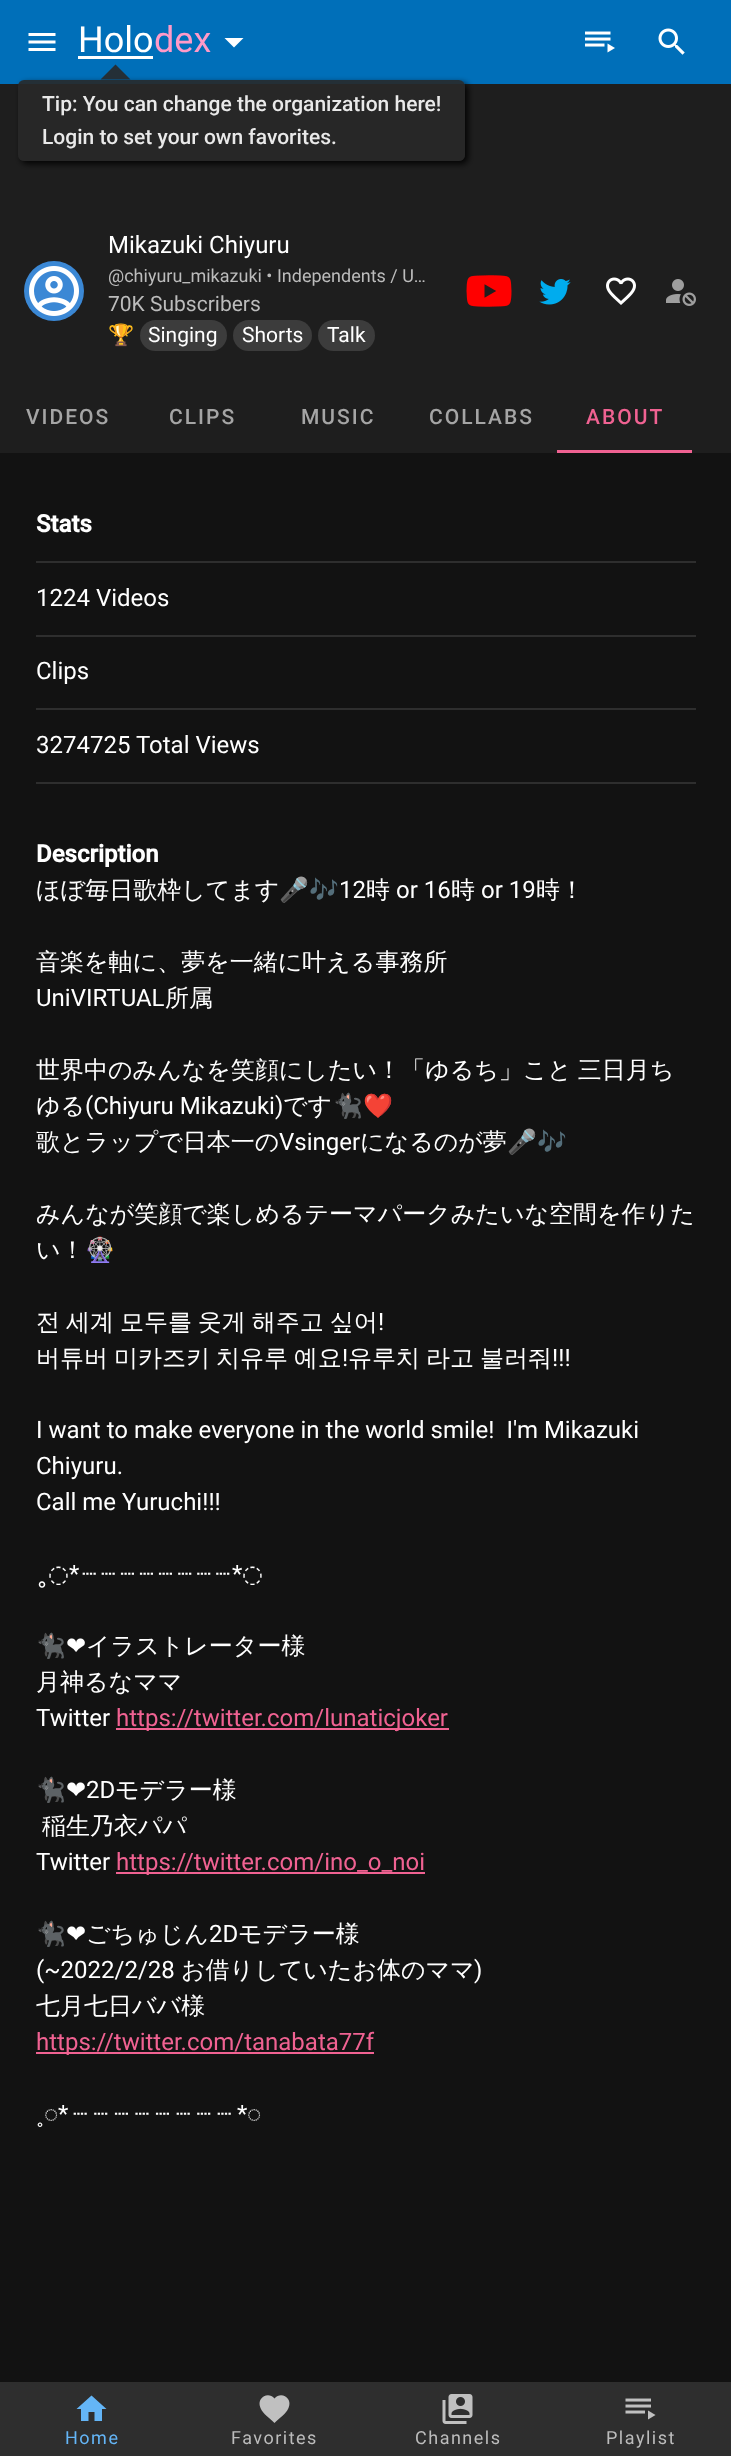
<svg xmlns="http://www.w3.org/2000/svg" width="731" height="2456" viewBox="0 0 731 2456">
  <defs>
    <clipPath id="clip1"><path d="M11 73H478V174H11ZM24 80H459C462.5 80 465 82.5 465 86V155C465 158.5 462.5 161 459 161H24C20.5 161 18 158.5 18 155V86C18 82.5 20.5 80 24 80Z" clip-rule="evenodd"/></clipPath>
    <filter id="blur1" x="-50%" y="-200%" width="200%" height="500%"><feGaussianBlur stdDeviation="3"/></filter>
  </defs>
  <rect width="100%" height="100%" fill="#121212"/>
  <rect x="0" y="0" width="731" height="84" fill="#006fb9"/>
  <image x="28" y="33" width="28" height="18" href="img1.png"/>
  <text x="78" y="52" font-family="Roboto" font-size="36" fill="#ffffff">Holo</text>
  <rect x="78" y="56" width="75" height="3" fill="#ffffff"/>
  <text x="154" y="52" font-family="Roboto" font-size="36" fill="#ff9ac8">dex</text>
  <path d="M224.5 38L234 47.5L243.5 38Z" fill="#ffffff"/>
  <image x="585" y="31" width="30" height="22" href="img2.png"/>
  <image x="658" y="28" width="27" height="27" href="img3.png"/>
  <rect x="0" y="2382" width="731" height="74" fill="#2e2e2e"/>
  <path d="M88.5 2421V2412H94.5V2421H102V2409H106.5L91.5 2395.5L76.5 2409H81V2421Z" fill="#64b5f6"/>
  <text x="65" y="2444" font-family="Roboto" font-size="18" letter-spacing="1.5" fill="#64b5f6">Home</text>
  <path d="M274.5 2423C270 2418.5 263 2414 260.5 2408C256 2398 268 2391 274.5 2398.5C281 2391 293 2398 288.5 2408C286 2414 279 2418.5 274.5 2423Z" fill="#c0c0c0"/>
  <text x="231" y="2444" font-family="Roboto" font-size="18" letter-spacing="1.5" fill="#bcbcbc">Favorites</text>
  <image x="442" y="2394" width="31" height="30" href="img4.png"/>
  <text x="415" y="2444" font-family="Roboto" font-size="18" letter-spacing="1.5" fill="#bcbcbc">Channels</text>
  <image x="625" y="2398" width="31" height="22" href="img5.png"/>
  <text x="606" y="2444" font-family="Roboto" font-size="18" letter-spacing="1.5" fill="#bcbcbc">Playlist</text>
  <rect x="0" y="84" width="731" height="369" fill="#1e1e1e"/>
  <circle cx="54" cy="291" r="30" fill="#3b88d5"/>
  <image x="29" y="266" width="50" height="50" href="img6.png"/>
  <text x="108" y="253" font-family="Roboto" font-size="24" fill="#ffffff">Mikazuki Chiyuru</text>
  <text x="108" y="282" font-family="Roboto" font-size="18" fill="#bcbcbc">@chiyuru_mikazuki • Independents / U…</text>
  <text x="108" y="311" font-family="Roboto" font-size="21" fill="#bcbcbc">70K Subscribers</text>
  <text x="108" y="342" font-family="Noto Color Emoji" font-size="21" fill="#bcbcbc">🏆</text>
  <rect x="140" y="320" width="87" height="31" rx="15.5" fill="#3c3c3c"/>
  <text x="148" y="342" font-family="Roboto" font-size="21" fill="#ffffff">Singing</text>
  <rect x="233" y="320" width="79" height="31" rx="15.5" fill="#3c3c3c"/>
  <text x="242" y="342" font-family="Roboto" font-size="21" fill="#ffffff">Shorts</text>
  <rect x="318" y="320" width="57" height="31" rx="15.5" fill="#3c3c3c"/>
  <text x="327" y="342" font-family="Roboto" font-size="21" fill="#ffffff">Talk</text>
  <image x="466" y="275" width="46" height="32" href="img7.png"/>
  <image x="539" y="279" width="32" height="26" href="img8.png"/>
  <image x="606" y="277" width="30" height="28" href="img9.png"/>
  <image x="666" y="279" width="30" height="27" href="img10.png"/>
  <text x="26" y="424" font-family="Roboto" font-size="21" font-weight="500" letter-spacing="2" fill="#a5a5a5">VIDEOS</text>
  <text x="169" y="424" font-family="Roboto" font-size="21" font-weight="500" letter-spacing="2" fill="#a5a5a5">CLIPS</text>
  <text x="301" y="424" font-family="Roboto" font-size="21" font-weight="500" letter-spacing="2" fill="#a5a5a5">MUSIC</text>
  <text x="429" y="424" font-family="Roboto" font-size="21" font-weight="500" letter-spacing="2" fill="#a5a5a5">COLLABS</text>
  <text x="586" y="424" font-family="Roboto" font-size="21" font-weight="500" letter-spacing="2" fill="#f06292">ABOUT</text>
  <rect x="557" y="450" width="135" height="3" fill="#f06292"/>
  <text x="36" y="532" font-family="Roboto" font-size="24" font-weight="bold" fill="#ffffff">Stats</text>
  <rect x="36" y="561" width="660" height="2" fill="#2e2e2e"/>
  <text x="36" y="606" font-family="Roboto" font-size="24" fill="#ffffff">1224 Videos</text>
  <rect x="36" y="635" width="660" height="2" fill="#2e2e2e"/>
  <text x="36" y="679" font-family="Roboto" font-size="24" fill="#ffffff">Clips</text>
  <rect x="36" y="708" width="660" height="2" fill="#2e2e2e"/>
  <text x="36" y="753" font-family="Roboto" font-size="24" fill="#ffffff">3274725 Total Views</text>
  <rect x="36" y="782" width="660" height="2" fill="#2e2e2e"/>
  <text x="36" y="862" font-family="Roboto" font-size="24" font-weight="bold" fill="#ffffff">Description</text>
  <text x="36" y="898" font-family="WenQuanYi Zen Hei" font-size="24" font-weight="500" fill="#ffffff">ほぼ毎日歌枠してます</text>
  <text x="279" y="898" font-family="Noto Color Emoji" font-size="24" fill="#ffffff">🎤🎶</text>
  <text x="339" y="898" font-family="Roboto" font-size="24" fill="#ffffff">12</text>
  <text x="366" y="898" font-family="WenQuanYi Zen Hei" font-size="24" font-weight="500" fill="#ffffff">時</text>
  <text x="396" y="898" font-family="Roboto" font-size="24" fill="#ffffff">or 16</text>
  <text x="451" y="898" font-family="WenQuanYi Zen Hei" font-size="24" font-weight="500" fill="#ffffff">時</text>
  <text x="481" y="898" font-family="Roboto" font-size="24" fill="#ffffff">or 19</text>
  <text x="536" y="898" font-family="WenQuanYi Zen Hei" font-size="24" font-weight="500" fill="#ffffff">時！</text>
  <text x="36" y="970" font-family="WenQuanYi Zen Hei" font-size="24" font-weight="500" fill="#ffffff">音楽を軸に、夢を一緒に叶える事務所</text>
  <text x="36" y="1006" font-family="Roboto" font-size="24" fill="#ffffff">UniVIRTUAL</text>
  <text x="165" y="1006" font-family="WenQuanYi Zen Hei" font-size="24" font-weight="500" fill="#ffffff">所属</text>
  <text x="36" y="1078" word-spacing="-1.25" font-family="WenQuanYi Zen Hei" font-size="24" font-weight="500" fill="#ffffff">世界中のみんなを笑顔にしたい！「ゆるち」こと 三日月ち</text>
  <text x="36" y="1114" font-family="WenQuanYi Zen Hei" font-size="24" font-weight="500" fill="#ffffff">ゆる</text>
  <text x="85" y="1114" font-family="Roboto" font-size="24" fill="#ffffff">(Chiyuru Mikazuki)</text>
  <text x="283" y="1114" font-family="WenQuanYi Zen Hei" font-size="24" font-weight="500" fill="#ffffff">です</text>
  <text x="333" y="1114" font-family="Noto Color Emoji" font-size="24" fill="#ffffff">🐈‍⬛❤️</text>
  <text x="36" y="1150" font-family="WenQuanYi Zen Hei" font-size="24" font-weight="500" fill="#ffffff">歌とラップで日本一の</text>
  <text x="279" y="1150" font-family="Roboto" font-size="24" fill="#ffffff">Vsinger</text>
  <text x="360" y="1150" font-family="WenQuanYi Zen Hei" font-size="24" font-weight="500" fill="#ffffff">になるのが夢</text>
  <text x="507" y="1150" font-family="Noto Color Emoji" font-size="24" fill="#ffffff">🎤🎶</text>
  <text x="36" y="1222" font-family="WenQuanYi Zen Hei" font-size="24" font-weight="500" fill="#ffffff">みんなが笑顔で楽しめるテーマパークみたいな空間を作りた</text>
  <text x="36" y="1258" font-family="WenQuanYi Zen Hei" font-size="24" font-weight="500" fill="#ffffff">い！</text>
  <text x="85" y="1258" font-family="Noto Color Emoji" font-size="24" fill="#ffffff">🎡</text>
  <text x="36" y="1330" word-spacing="-1.25" font-family="WenQuanYi Zen Hei" font-size="24" font-weight="500" fill="#ffffff">전 세계 모두를 웃게 해주고 싶어</text>
  <text x="378" y="1330" font-family="Roboto" font-size="24" fill="#ffffff">!</text>
  <text x="36" y="1366" word-spacing="-1.25" font-family="WenQuanYi Zen Hei" font-size="24" font-weight="500" fill="#ffffff">버튜버 미카즈키 치유루 예요</text>
  <text x="342" y="1366" font-family="Roboto" font-size="24" fill="#ffffff">!</text>
  <text x="348" y="1366" word-spacing="-1.25" font-family="WenQuanYi Zen Hei" font-size="24" font-weight="500" fill="#ffffff">유루치 라고 불러줘</text>
  <text x="552" y="1366" font-family="Roboto" font-size="24" fill="#ffffff">!!!</text>
  <text x="36" y="1438" font-family="Roboto" font-size="24" fill="#ffffff" xml:space="preserve">I want to make everyone in the world smile!  I'm Mikazuki</text>
  <text x="36" y="1474" font-family="Roboto" font-size="24" fill="#ffffff">Chiyuru.</text>
  <text x="36" y="1510" font-family="Roboto" font-size="24" fill="#ffffff">Call me Yuruchi!!!</text>
  <text x="36" y="1582" font-family="DejaVu Sans" font-size="24" fill="#ffffff">˳◌</text>
  <text x="69" y="1582" font-family="Roboto" font-size="24" fill="#ffffff">*</text>
  <text x="82" y="1582" word-spacing="-3" font-family="DejaVu Sans" font-size="24" fill="#ffffff">┈ ┈ ┈ ┈ ┈ ┈ ┈ ┈</text>
  <text x="232" y="1582" font-family="Roboto" font-size="24" fill="#ffffff">*</text>
  <text x="242" y="1582" font-family="DejaVu Sans" font-size="24" fill="#ffffff">◌</text>
  <text x="36" y="1654" font-family="Noto Color Emoji" font-size="24" fill="#ffffff">🐈‍⬛</text>
  <text x="66" y="1654" font-family="DejaVu Sans" font-size="24" fill="#ffffff">❤</text>
  <text x="86" y="1654" font-family="WenQuanYi Zen Hei" font-size="24" font-weight="500" fill="#ffffff">イラストレーター様</text>
  <text x="36" y="1690" font-family="WenQuanYi Zen Hei" font-size="24" font-weight="500" fill="#ffffff">月神るなママ</text>
  <text x="36" y="1726" font-family="Roboto" font-size="24" fill="#ffffff">Twitter</text>
  <rect x="116" y="1728" width="333" height="2" fill="#f06292"/>
  <text x="116" y="1726" font-family="Roboto" font-size="24" fill="#f06292">https://twitter.com/lunaticjoker</text>
  <text x="36" y="1798" font-family="Noto Color Emoji" font-size="24" fill="#ffffff">🐈‍⬛</text>
  <text x="66" y="1798" font-family="DejaVu Sans" font-size="24" fill="#ffffff">❤</text>
  <text x="86" y="1798" font-family="Roboto" font-size="24" fill="#ffffff">2D</text>
  <text x="115" y="1798" font-family="WenQuanYi Zen Hei" font-size="24" font-weight="500" fill="#ffffff">モデラー様</text>
  <text x="42" y="1834" font-family="WenQuanYi Zen Hei" font-size="24" font-weight="500" fill="#ffffff">稲生乃衣パパ</text>
  <text x="36" y="1870" font-family="Roboto" font-size="24" fill="#ffffff">Twitter</text>
  <rect x="116" y="1872" width="309" height="2" fill="#f06292"/>
  <text x="116" y="1870" font-family="Roboto" font-size="24" fill="#f06292">https://twitter.com/ino_o_noi</text>
  <text x="36" y="1942" font-family="Noto Color Emoji" font-size="24" fill="#ffffff">🐈‍⬛</text>
  <text x="66" y="1942" font-family="DejaVu Sans" font-size="24" fill="#ffffff">❤</text>
  <text x="86" y="1942" font-family="WenQuanYi Zen Hei" font-size="24" font-weight="500" fill="#ffffff">ごちゅじん</text>
  <text x="209" y="1942" font-family="Roboto" font-size="24" fill="#ffffff">2D</text>
  <text x="238" y="1942" font-family="WenQuanYi Zen Hei" font-size="24" font-weight="500" fill="#ffffff">モデラー様</text>
  <text x="36" y="1978" font-family="Roboto" font-size="24" fill="#ffffff">(~2022/2/28</text>
  <text x="181" y="1978" font-family="WenQuanYi Zen Hei" font-size="24" font-weight="500" fill="#ffffff">お借りしていたお体のママ</text>
  <text x="474" y="1978" font-family="Roboto" font-size="24" fill="#ffffff">)</text>
  <text x="36" y="2014" font-family="WenQuanYi Zen Hei" font-size="24" font-weight="500" fill="#ffffff">七月七日ババ様</text>
  <rect x="36" y="2052" width="338" height="2" fill="#f06292"/>
  <text x="36" y="2050" font-family="Roboto" font-size="24" fill="#f06292">https://twitter.com/tanabata77f</text>
  <text x="36" y="2122" font-family="Liberation Sans" font-size="24" fill="#ffffff">˳◌</text>
  <text x="58" y="2122" font-family="Roboto" font-size="24" fill="#ffffff">*</text>
  <text x="73" y="2122" word-spacing="-1.5" font-family="DejaVu Sans" font-size="24" fill="#ffffff">┈ ┈ ┈ ┈ ┈ ┈ ┈ ┈</text>
  <text x="237" y="2122" font-family="Roboto" font-size="24" fill="#ffffff">*</text>
  <text x="247" y="2122" font-family="Liberation Sans" font-size="24" fill="#ffffff">◌</text>
  <g clip-path="url(#clip1)">
    <rect x="21" y="83" width="447" height="81" rx="6" fill="#000000" fill-opacity="0.9" filter="url(#blur1)"/>
  </g>
  <rect x="18" y="80" width="447" height="81" rx="6" fill="#282828" fill-opacity="0.9"/>
  <path d="M130.5 79.5H100.5L115.5 64.5Z" fill="#242f37"/>
  <text x="42" y="111" font-family="Roboto" font-size="21" font-weight="500" fill="#e9e9e9">Tip: You can change the organization here!</text>
  <text x="42" y="144" font-family="Roboto" font-size="21" font-weight="500" fill="#e9e9e9">Login to set your own favorites.</text>
</svg>
